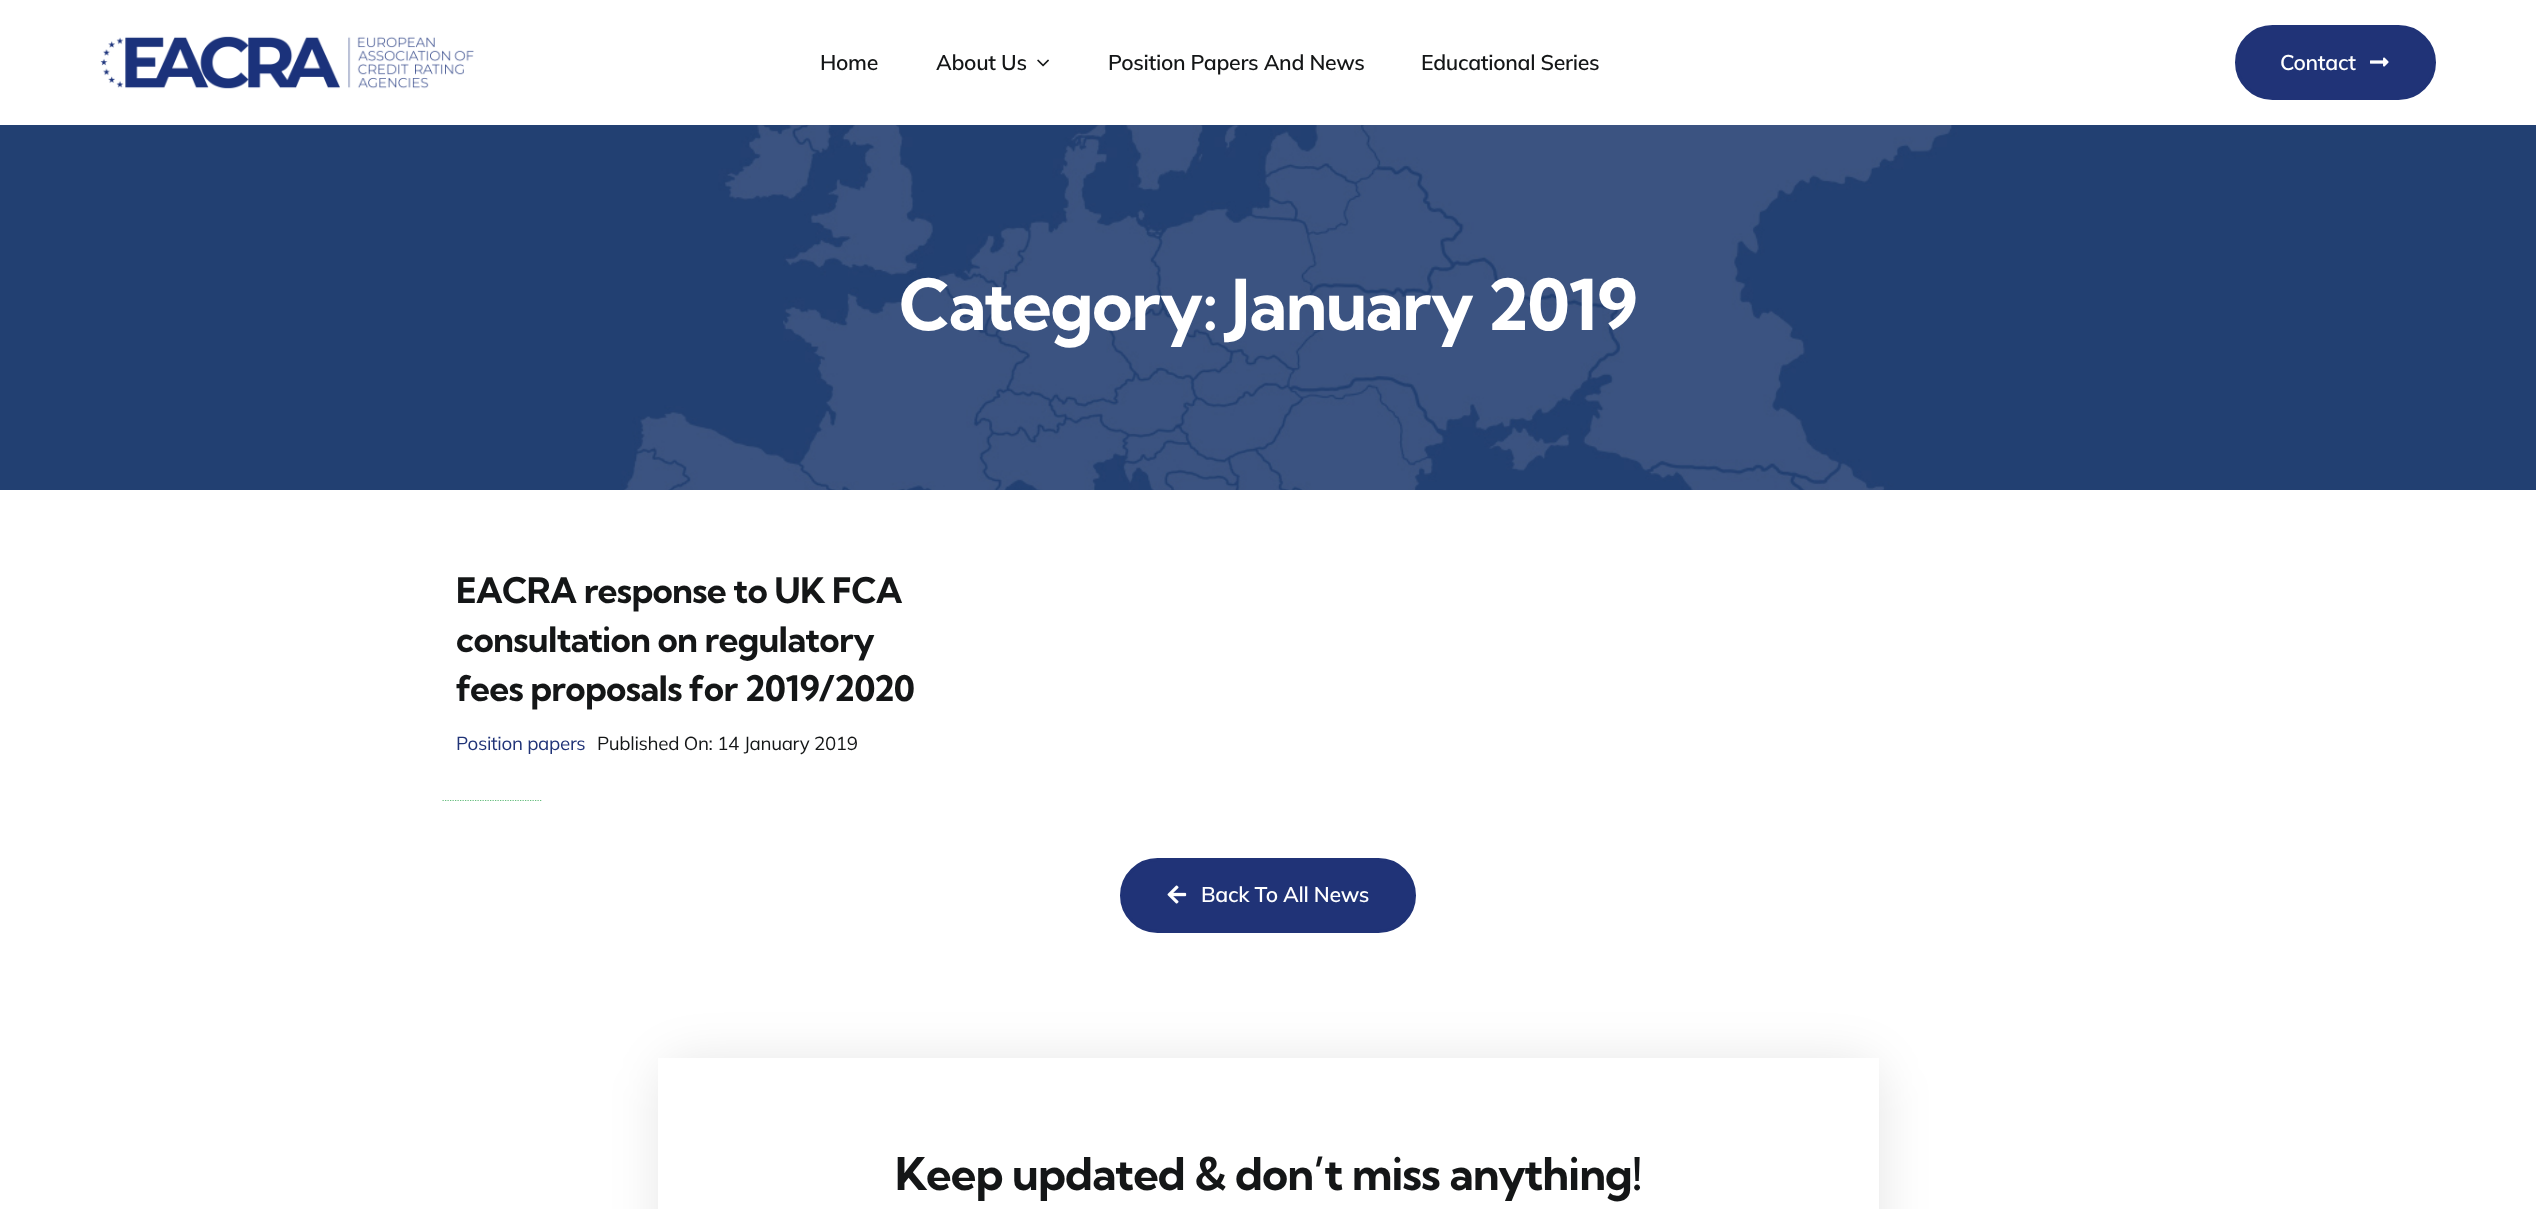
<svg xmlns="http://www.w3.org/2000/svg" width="2536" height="1209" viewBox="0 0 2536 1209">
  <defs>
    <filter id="blur1" x="-50%" y="-200%" width="200%" height="500%"><feGaussianBlur stdDeviation="25"/></filter>
  </defs>
  <rect width="100%" height="100%" fill="#ffffff"/>
  <image x="100" y="36" width="374" height="53" href="img1.png"/>
  <text x="820" y="70" font-family="Mulish" font-size="21.25" font-weight="600" letter-spacing="-0.3" fill="#141617">Home</text>
  <text x="936" y="70" font-family="Mulish" font-size="21.25" font-weight="600" letter-spacing="-0.3" fill="#141617">About Us</text>
  <image x="1037" y="59" width="12" height="8" href="img2.png"/>
  <text x="1108" y="70" font-family="Mulish" font-size="21.25" font-weight="600" letter-spacing="-0.3" fill="#141617">Position Papers And News</text>
  <text x="1421" y="70" font-family="Mulish" font-size="21.25" font-weight="600" letter-spacing="-0.3" fill="#141617">Educational Series</text>
  <rect x="2236.5" y="26.5" width="198" height="72" rx="36" fill="#203377" stroke="#203377" stroke-width="3"/>
  <text x="2280" y="70" font-family="Mulish" font-size="21.25" font-weight="600" letter-spacing="-0.3" fill="#ffffff">Contact</text>
  <image x="2370" y="57" width="19" height="10" href="img3.png"/>
  <image x="0" y="125" width="2536" height="365" href="img4.png"/>
  <text x="899" y="330" font-family="Kumbh Sans" font-size="70" font-weight="bold" letter-spacing="-1.4" fill="#ffffff">Category: January 2019</text>
  <text x="456" y="603" font-family="Kumbh Sans" font-size="35" font-weight="bold" letter-spacing="-0.7" fill="#141617">EACRA response to UK FCA</text>
  <text x="456" y="652" font-family="Kumbh Sans" font-size="35" font-weight="bold" letter-spacing="-0.7" fill="#141617">consultation on regulatory</text>
  <text x="456" y="701" font-family="Kumbh Sans" font-size="35" font-weight="bold" letter-spacing="-0.7" fill="#141617">fees proposals for 2019/2020</text>
  <text x="456" y="750" font-family="Mulish" font-size="18.75" letter-spacing="-0.3" fill="#203377">Position papers</text>
  <text x="597" y="750" font-family="Mulish" font-size="18.75" letter-spacing="-0.3" fill="#141617">Published On: 14 January 2019</text>
  <path d="M442.5 800.5H542.5" fill="none" stroke="#65bd7d" stroke-width="1.2" stroke-dasharray="1.25 1.25"/>
  <rect x="1121.5" y="859.5" width="293" height="72" rx="36" fill="#203377" stroke="#203377" stroke-width="3"/>
  <image x="1167" y="885" width="20" height="19" href="img5.png"/>
  <text x="1201" y="902" font-family="Mulish" font-size="21.25" font-weight="600" letter-spacing="-0.3" fill="#ffffff">Back To All News</text>
  <rect x="660" y="1060" width="1221" height="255" rx="31" fill="#131516" fill-opacity="0.1" filter="url(#blur1)"/>
  <rect x="658" y="1058" width="1221" height="151" fill="#ffffff"/>
  <text x="895" y="1190" font-family="Kumbh Sans" font-size="45" font-weight="bold" letter-spacing="-0.9" fill="#141617">Keep updated &amp; don’t miss anything!</text>
</svg>
